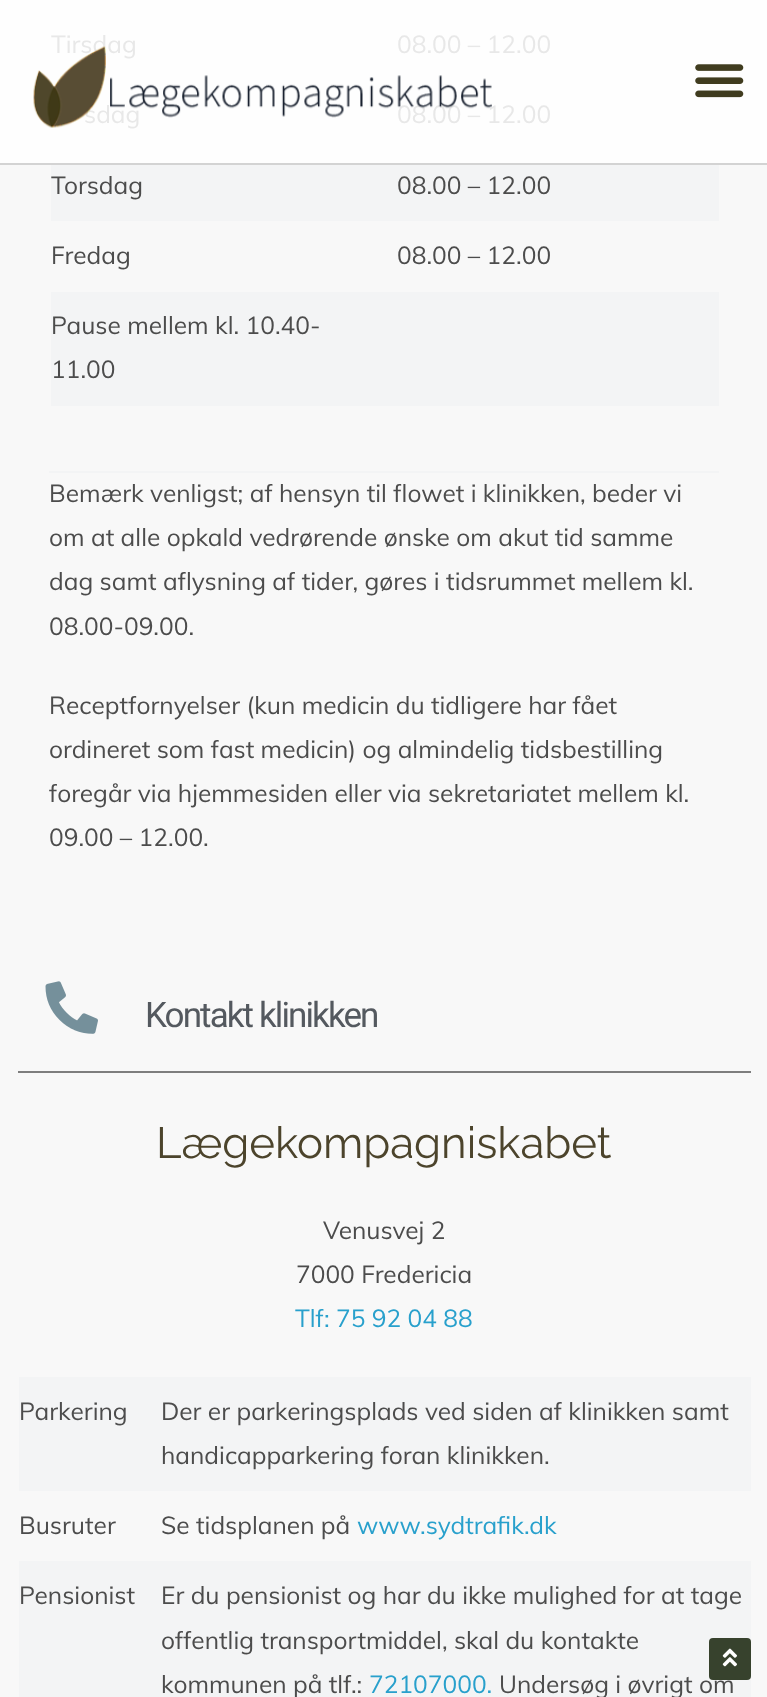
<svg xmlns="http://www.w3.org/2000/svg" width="767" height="1697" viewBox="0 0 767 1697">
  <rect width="100%" height="100%" fill="#f8f8f8"/>
  <rect x="0" y="0" width="767" height="163" fill="#fefefe"/>
  <rect x="49" y="471" width="670" height="2" fill="#f3f4f5"/>
  <text x="51" y="53" font-family="Muli" font-size="24.5" fill="#e8e8e8">Tirsdag</text>
  <text x="397" y="53" font-family="Muli" font-size="24.5" fill="#e8e8e8">08.00 – 12.00</text>
  <text x="84" y="123" font-family="Muli" font-size="24.5" fill="#e8e8e8">sdag</text>
  <text x="397" y="123" font-family="Muli" font-size="24.5" fill="#e8e8e8">08.00 – 12.00</text>
  <rect x="51" y="165" width="668" height="56" fill="#f3f4f5"/>
  <text x="51" y="194" font-family="Muli" font-size="24.5" fill="#4c4c4c">Torsdag</text>
  <text x="397" y="194" font-family="Muli" font-size="24.5" fill="#4c4c4c">08.00 – 12.00</text>
  <text x="51" y="264" font-family="Muli" font-size="24.5" fill="#4c4c4c">Fredag</text>
  <text x="397" y="264" font-family="Muli" font-size="24.5" fill="#4c4c4c">08.00 – 12.00</text>
  <rect x="51" y="292" width="668" height="114" fill="#f3f4f5"/>
  <text x="51" y="334" font-family="Muli" font-size="24.5" fill="#4c4c4c">Pause mellem kl. 10.40-</text>
  <text x="51" y="378" font-family="Muli" font-size="24.5" fill="#4c4c4c">11.00</text>
  <text x="49" y="502" font-family="Muli" font-size="24.5" fill="#4c4c4c">Bemærk venligst; af hensyn til flowet i klinikken, beder vi</text>
  <text x="49" y="546" font-family="Muli" font-size="24.5" fill="#4c4c4c">om at alle opkald vedrørende ønske om akut tid samme</text>
  <text x="49" y="590" font-family="Muli" font-size="24.5" fill="#4c4c4c">dag samt aflysning af tider, gøres i tidsrummet mellem kl.</text>
  <text x="49" y="635" font-family="Muli" font-size="24.5" fill="#4c4c4c">08.00-09.00.</text>
  <text x="49" y="714" font-family="Muli" font-size="24.5" fill="#4c4c4c">Receptfornyelser (kun medicin du tidligere har fået</text>
  <text x="49" y="758" font-family="Muli" font-size="24.5" fill="#4c4c4c">ordineret som fast medicin) og almindelig tidsbestilling</text>
  <text x="49" y="802" font-family="Muli" font-size="24.5" fill="#4c4c4c">foregår via hjemmesiden eller via sekretariatet mellem kl.</text>
  <text x="49" y="846" font-family="Muli" font-size="24.5" fill="#4c4c4c">09.00 – 12.00.</text>
  <image x="45" y="981" width="53" height="53" href="img1.png"/>
  <text x="145" y="1027" font-family="Roboto" font-size="35" letter-spacing="-1.9" fill="#54595f">Kontakt klinikken</text>
  <rect x="18" y="1071" width="733" height="2" fill="#7e7e7e"/>
  <text x="156" y="1158" font-family="Raleway" font-size="43.75" fill="#4c442c">Lægekompagniskabet</text>
  <text x="323" y="1239" font-family="Muli" font-size="24.5" fill="#4c4c4c">Venusvej 2</text>
  <text x="296" y="1283" font-family="Muli" font-size="24.5" fill="#4c4c4c">7000 Fredericia</text>
  <text x="295" y="1327" font-family="Muli" font-size="24.5" fill="#28a0cc">Tlf: 75 92 04 88</text>
  <rect x="19" y="1377" width="732" height="114" fill="#f3f4f5"/>
  <text x="19" y="1420" font-family="Muli" font-size="24.5" fill="#4c4c4c">Parkering</text>
  <text x="161" y="1420" font-family="Muli" font-size="24.5" fill="#4c4c4c">Der er parkeringsplads ved siden af klinikken samt</text>
  <text x="161" y="1464" font-family="Muli" font-size="24.5" fill="#4c4c4c">handicapparkering foran klinikken.</text>
  <text x="19" y="1534" font-family="Muli" font-size="24.5" fill="#4c4c4c">Busruter</text>
  <text x="161" y="1534" font-family="Muli" font-size="24.5" fill="#4c4c4c">Se tidsplanen på</text>
  <text x="357" y="1534" font-family="Muli" font-size="24.5" fill="#28a0cc">www.sydtrafik.dk</text>
  <rect x="19" y="1561" width="732" height="136" fill="#f3f4f5"/>
  <text x="19" y="1604" font-family="Muli" font-size="24.5" fill="#4c4c4c">Pensionist</text>
  <text x="161" y="1604" font-family="Muli" font-size="24.5" fill="#4c4c4c">Er du pensionist og har du ikke mulighed for at tage</text>
  <text x="161" y="1649" font-family="Muli" font-size="24.5" fill="#4c4c4c">offentlig transportmiddel, skal du kontakte</text>
  <text x="161" y="1693" font-family="Muli" font-size="24.5" fill="#4c4c4c">kommunen på tlf.:</text>
  <text x="369" y="1693" font-family="Muli" font-size="24.5" fill="#28a0cc">72107000.</text>
  <text x="499" y="1693" font-family="Muli" font-size="24.5" fill="#4c4c4c">Undersøg i øvrigt om</text>
  <rect x="0" y="163" width="767" height="2" fill="#d3d3d3"/>
  <image x="33" y="46" width="459" height="82" href="img2.png"/>
  <image x="695" y="64" width="49" height="34" href="img3.png"/>
  <rect x="709" y="1638" width="42" height="42" rx="4" fill="#37422d"/>
  <image x="722" y="1648" width="15" height="19" href="img4.png"/>
</svg>
